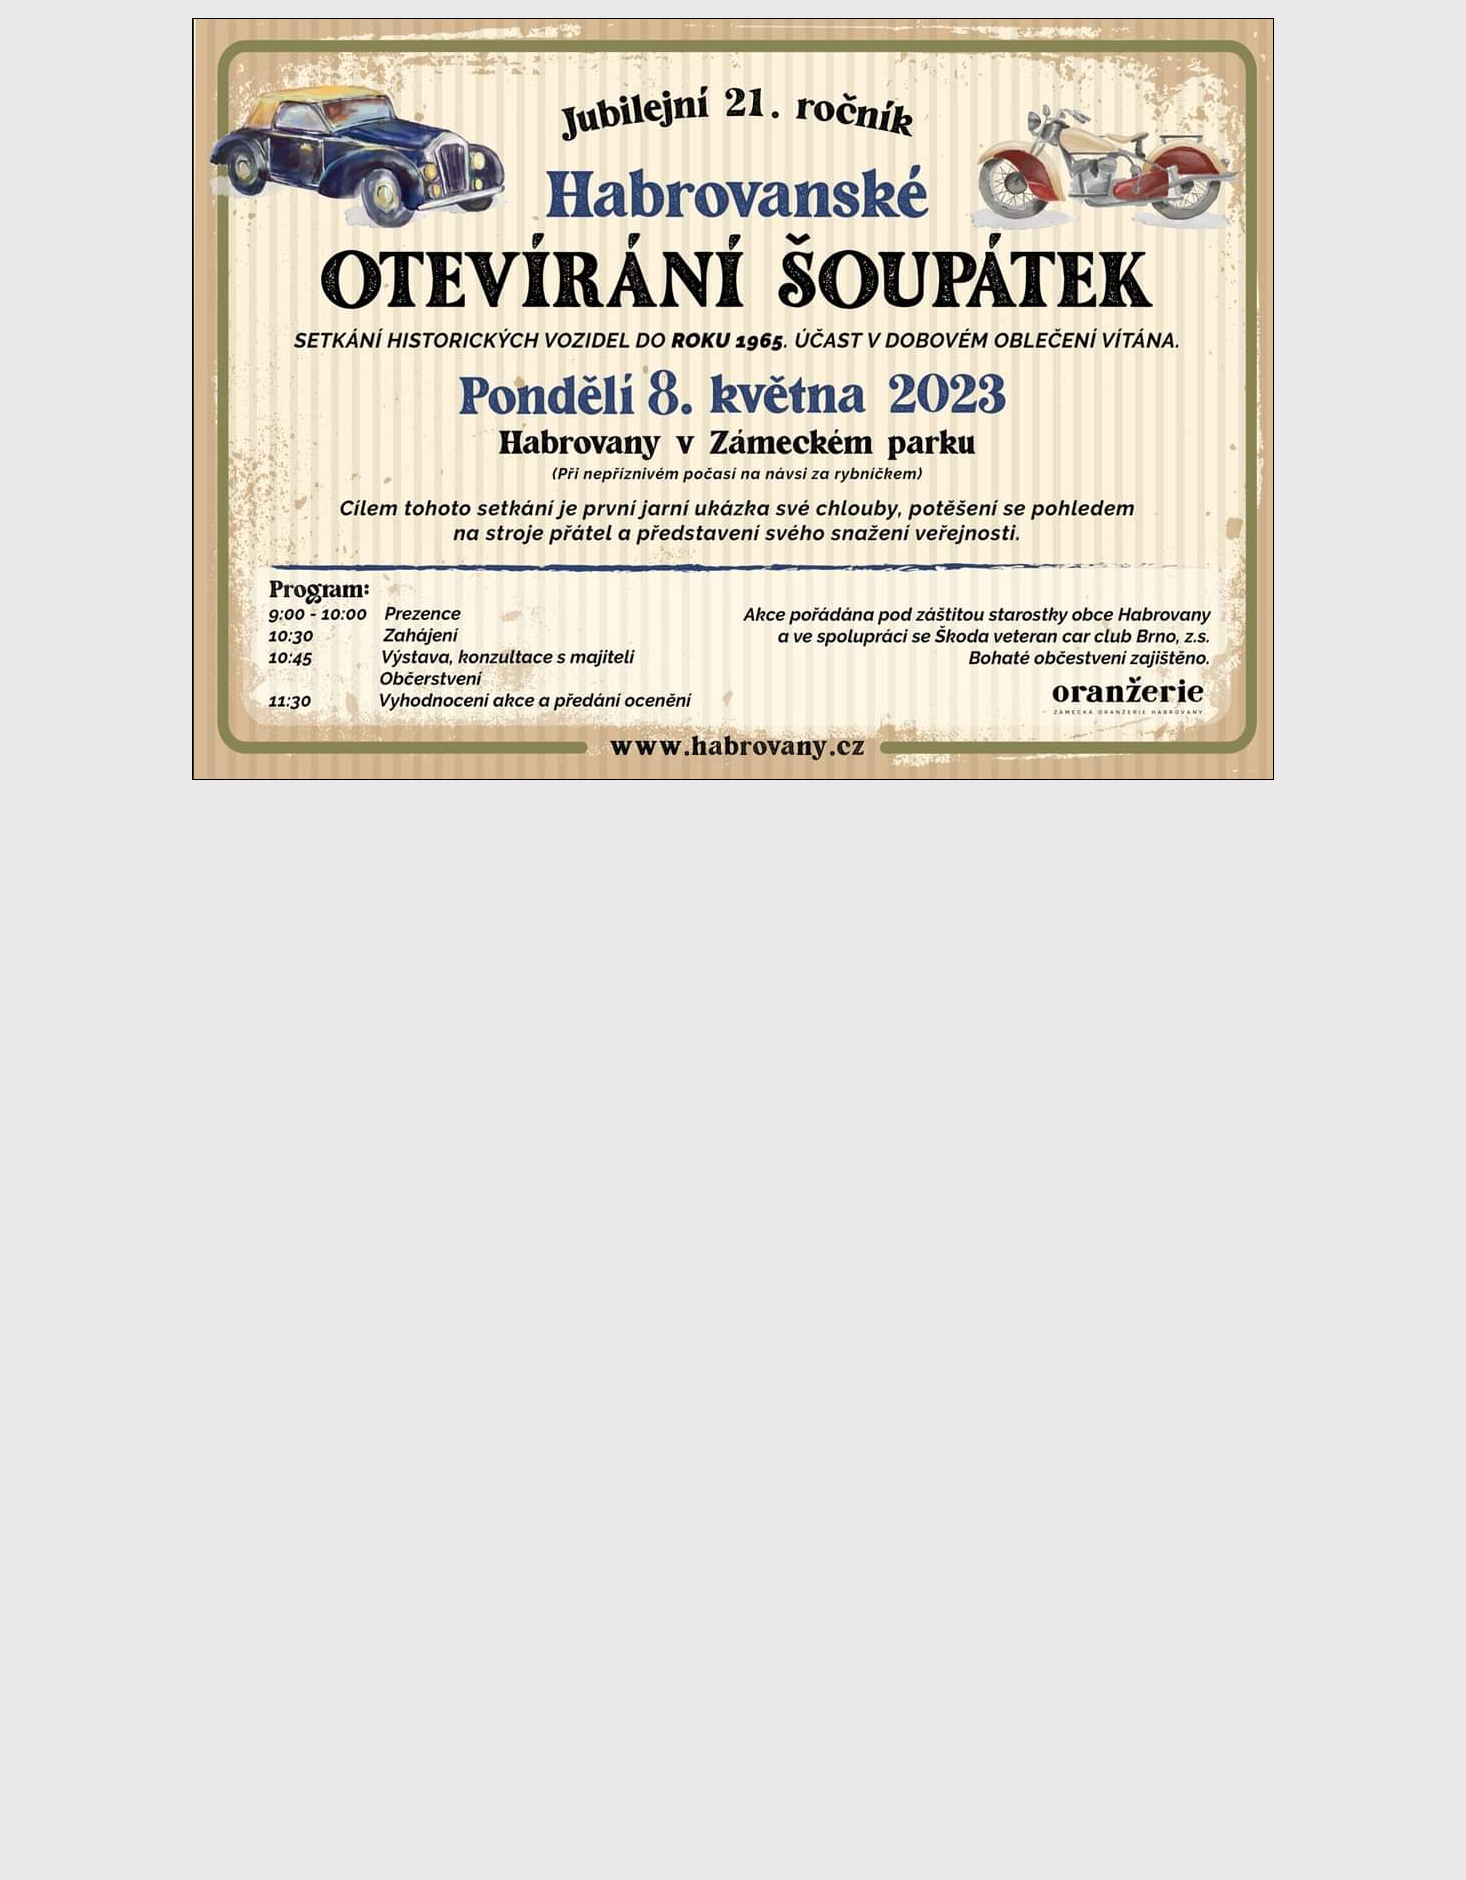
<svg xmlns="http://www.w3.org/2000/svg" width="1466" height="1880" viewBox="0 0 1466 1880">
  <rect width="100%" height="100%" fill="#eae8e8"/>
  <rect x="192.5" y="18.5" width="1081" height="761" fill="none" stroke="#000000"/>
  <image x="193" y="19" width="1080" height="760" href="img1.png"/>
</svg>
